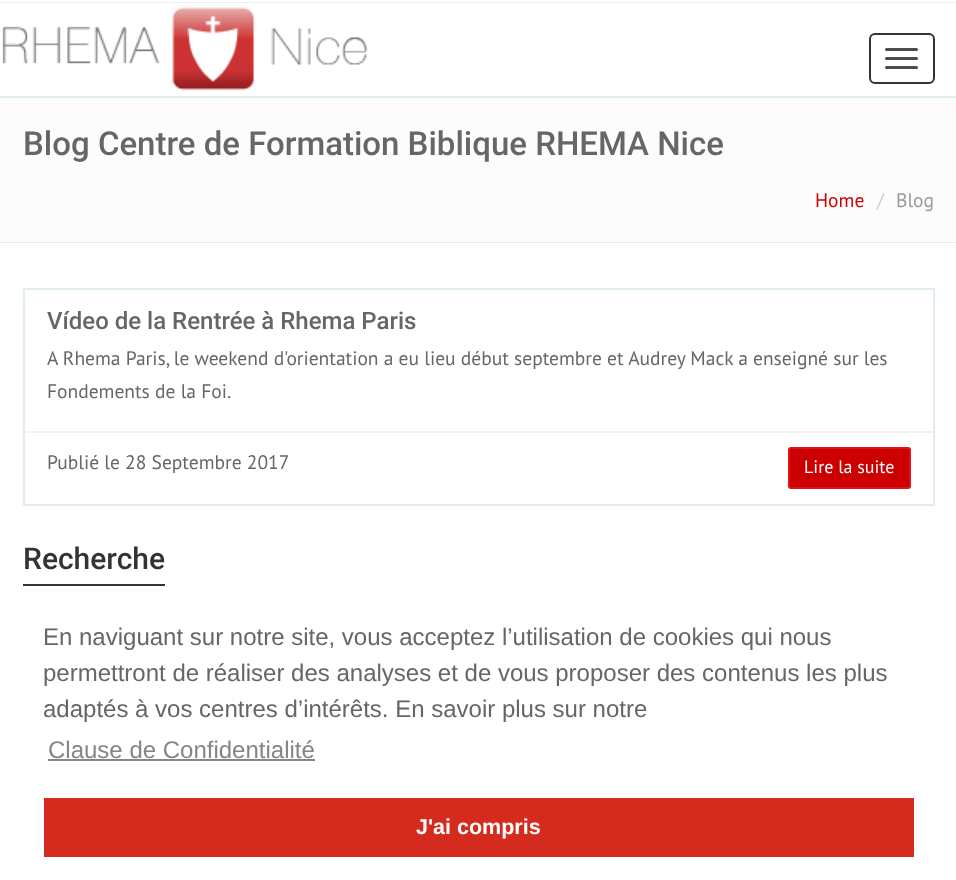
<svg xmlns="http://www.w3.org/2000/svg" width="956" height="880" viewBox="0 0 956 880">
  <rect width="100%" height="100%" fill="#ffffff"/>
  <rect x="0" y="2" width="956" height="1" fill="#eeeeee"/>
  <rect x="0" y="96" width="956" height="2" fill="#e0eded"/>
  <image x="2" y="7" width="366" height="84" href="img1.png"/>
  <rect x="870" y="34" width="64" height="49" rx="5" fill="none" stroke="#333333" stroke-width="2"/>
  <rect x="885" y="48" width="33" height="3" rx="1.5" fill="#4c4c4c"/>
  <rect x="885" y="57" width="33" height="3" rx="1.5" fill="#4c4c4c"/>
  <rect x="885" y="66" width="33" height="3" rx="1.5" fill="#4c4c4c"/>
  <rect x="0" y="98" width="956" height="144" fill="#fcfcfc"/>
  <rect x="0" y="242" width="956" height="1" fill="#e0eded"/>
  <text x="23" y="155" font-family="Roboto" font-size="33" font-weight="500" fill="#666666">Blog Centre de Formation Biblique RHEMA Nice</text>
  <text x="815" y="207" font-family="PT Sans" font-size="19.5" fill="#cc0000">Home</text>
  <text x="877" y="207" font-family="PT Sans" font-size="19.5" fill="#cccccc">/</text>
  <text x="896" y="207" font-family="PT Sans" font-size="19.5" fill="#999999">Blog</text>
  <rect x="24" y="289" width="910" height="216" fill="none" stroke="#e0eded" stroke-width="2"/>
  <text x="47" y="329" font-family="Roboto" font-size="24" font-weight="500" fill="#666666">Vídeo de la Rentrée à Rhema Paris</text>
  <text x="47" y="365" font-family="PT Sans" font-size="19.5" fill="#666666">A Rhema Paris, le weekend d'orientation a eu lieu début septembre et Audrey Mack a enseigné sur les</text>
  <text x="47" y="398" font-family="PT Sans" font-size="19.5" fill="#666666">Fondements de la Foi.</text>
  <rect x="24" y="431" width="909" height="2" fill="#f1f1f1"/>
  <text x="47" y="469" font-family="PT Sans" font-size="19.5" fill="#666666">Publié le 28 Septembre 2017</text>
  <rect x="789" y="448" width="121" height="40" rx="2" fill="#cc0000" stroke="#df1119" stroke-width="2"/>
  <text x="804" y="473" font-family="PT Sans" font-size="18" fill="#ffffff">Lire la suite</text>
  <rect x="23" y="584" width="142" height="2" fill="#333333"/>
  <text x="23" y="569" font-family="Roboto" font-size="30" font-weight="500" fill="#333333">Recherche</text>
  <text x="43" y="645" font-family="Liberation Sans" font-size="24" fill="#666666">En naviguant sur notre site, vous acceptez l’utilisation de cookies qui nous</text>
  <text x="43" y="681" font-family="Liberation Sans" font-size="24" fill="#666666">permettront de réaliser des analyses et de vous proposer des contenus les plus</text>
  <text x="43" y="717" font-family="Liberation Sans" font-size="24" fill="#666666">adaptés à vos centres d’intérêts. En savoir plus sur notre</text>
  <text x="48" y="758" font-family="Liberation Sans" font-size="24" fill="#858585">Clause de Confidentialité</text>
  <rect x="48" y="759" width="267" height="2" fill="#858585"/>
  <rect x="44" y="798" width="870" height="59" fill="#d52b1e"/>
  <text x="416" y="834" font-family="Liberation Sans" font-size="21.5" font-weight="bold" fill="#ffffff">J'ai compris</text>
</svg>
